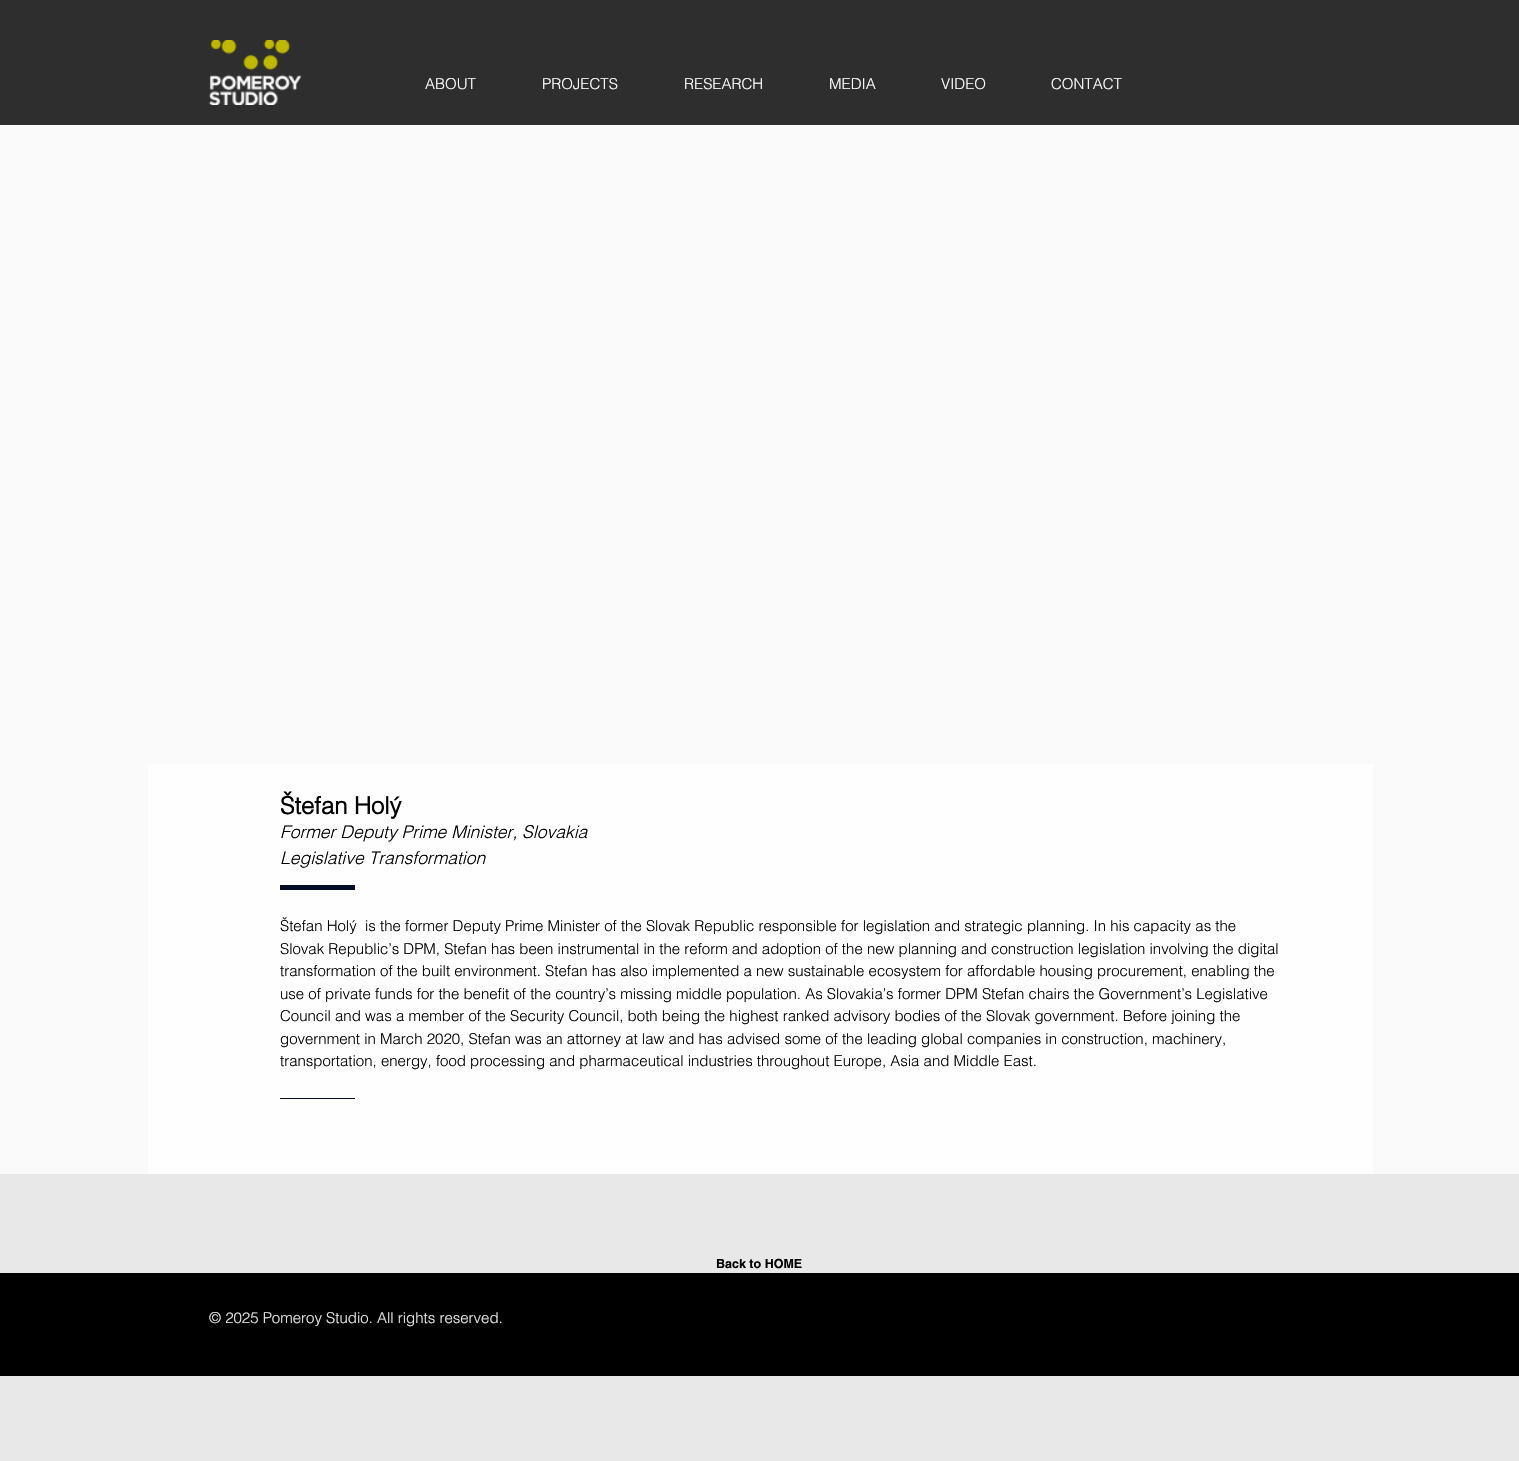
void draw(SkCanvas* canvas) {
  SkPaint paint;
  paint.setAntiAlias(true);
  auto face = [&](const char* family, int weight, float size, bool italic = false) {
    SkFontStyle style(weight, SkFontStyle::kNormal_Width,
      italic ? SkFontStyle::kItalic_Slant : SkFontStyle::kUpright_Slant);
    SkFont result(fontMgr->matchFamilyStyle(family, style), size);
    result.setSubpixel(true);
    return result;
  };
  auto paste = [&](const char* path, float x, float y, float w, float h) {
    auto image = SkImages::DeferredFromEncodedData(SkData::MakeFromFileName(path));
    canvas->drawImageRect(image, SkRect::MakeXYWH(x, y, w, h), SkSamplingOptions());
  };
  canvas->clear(0xffe8e8e8);
  paint.setColor(0xff2f2e2e);
  canvas->drawRect(SkRect::MakeXYWH(0, 0, 1519, 125), paint);
  paste("img/1.png", 208, 40, 94, 65);
  {
    const struct { float x, y, w, h; SkColor color; } items[] = {
      {0, 125, 1519, 1049, 0xfffafafa},
      {148, 764, 1225, 410, 0xfffefefe},
      {280, 885, 75, 5, 0xff060e25},
      {280, 1098, 75, 1, 0xff060e25},
      {0, 1273, 1519, 103, 0xff000000},
    };
    for (auto [x, y, w, h, color] : items) {
      paint.setColor(color);
      canvas->drawRect(SkRect::MakeXYWH(x, y, w, h), paint);
    }
  }
  auto f0 = face("helvetica", 300, 15);
  paint.setColor(0xffffffff);
  {
    const struct { const char* s; float x, y; } items[] = {
      {"ABOUT", 425, 89},
      {"PROJECTS", 542, 89},
      {"RESEARCH", 684, 89},
      {"MEDIA", 829, 89},
      {"VIDEO", 941, 89},
      {"CONTACT", 1051, 89},
    };
    for (auto [s, x, y] : items) {
      canvas->drawString(s, x, y, f0, paint);
    }
  }
  auto f1 = face("helvetica", 700, 23.75f);
  paint.setColor(0xff000000);
  canvas->drawString("Štefan Holý", 280, 814, f1, paint);
  auto f2 = face("helvetica", 300, 17.5f, true);
  canvas->drawString("Former Deputy Prime Minister, Slovakia", 280, 838, f2, paint);
  canvas->drawString("Legislative Transformation", 280, 864, f2, paint);
  {
    const struct { const char* s; float x, y; } items[] = {
      {"Štefan Holý  is the former Deputy Prime Minister of the Slovak Republic responsible for legislation and strategic planning. In his capacity as the", 280, 931},
      {"Slovak Republic’s DPM, Stefan has been instrumental in the reform and adoption of the new planning and construction legislation involving the digital", 280, 954},
      {"transformation of the built environment. Stefan has also implemented a new sustainable ecosystem for affordable housing procurement, enabling the", 280, 976},
      {"use of private funds for the benefit of the country’s missing middle population. As Slovakia’s former DPM Stefan chairs the Government’s Legislative", 280, 999},
      {"Council and was a member of the Security Council, both being the highest ranked advisory bodies of the Slovak government. Before joining the", 280, 1021},
      {"government in March 2020, Stefan was an attorney at law and has advised some of the leading global companies in construction, machinery,", 280, 1044},
      {"transportation, energy, food processing and pharmaceutical industries throughout Europe, Asia and Middle East.", 280, 1066},
    };
    for (auto [s, x, y] : items) {
      canvas->drawString(s, x, y, f0, paint);
    }
  }
  auto f3 = face("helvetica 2", 700, 12.5f);
  canvas->drawString("Back to HOME", 716, 1268, f3, paint);
  paint.setColor(0xffe8e8e8);
  canvas->drawString("© 2025 Pomeroy Studio. All rights reserved.", 209, 1323, f0, paint);
}
